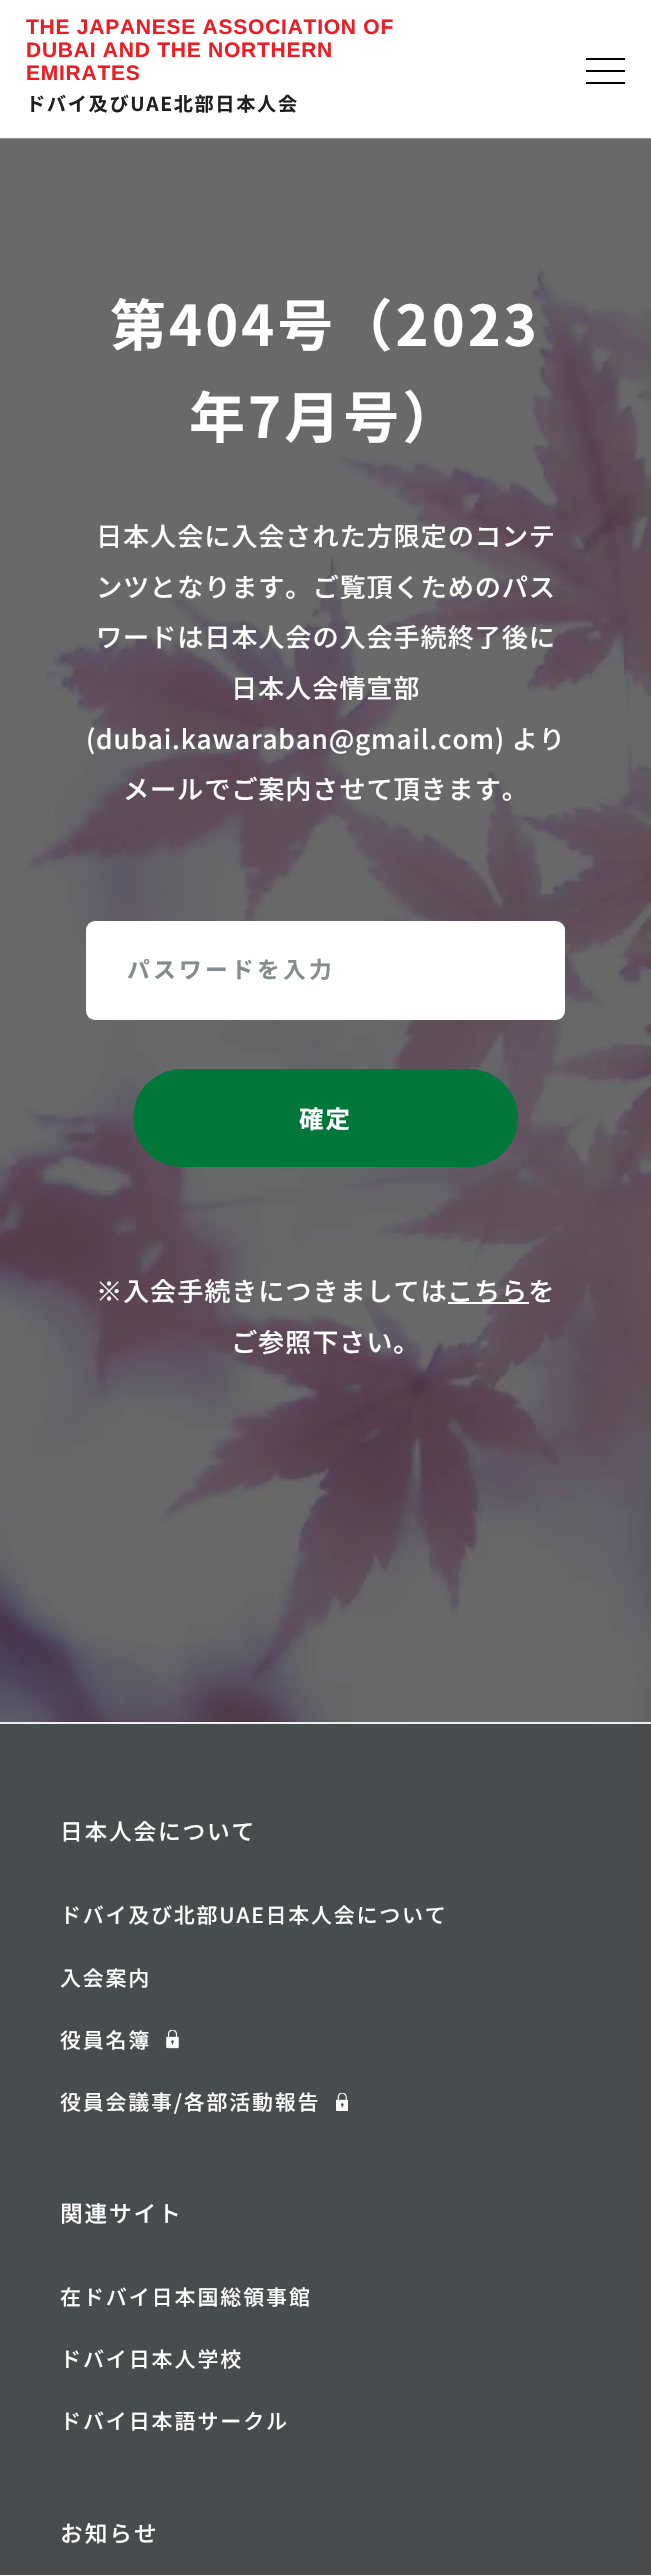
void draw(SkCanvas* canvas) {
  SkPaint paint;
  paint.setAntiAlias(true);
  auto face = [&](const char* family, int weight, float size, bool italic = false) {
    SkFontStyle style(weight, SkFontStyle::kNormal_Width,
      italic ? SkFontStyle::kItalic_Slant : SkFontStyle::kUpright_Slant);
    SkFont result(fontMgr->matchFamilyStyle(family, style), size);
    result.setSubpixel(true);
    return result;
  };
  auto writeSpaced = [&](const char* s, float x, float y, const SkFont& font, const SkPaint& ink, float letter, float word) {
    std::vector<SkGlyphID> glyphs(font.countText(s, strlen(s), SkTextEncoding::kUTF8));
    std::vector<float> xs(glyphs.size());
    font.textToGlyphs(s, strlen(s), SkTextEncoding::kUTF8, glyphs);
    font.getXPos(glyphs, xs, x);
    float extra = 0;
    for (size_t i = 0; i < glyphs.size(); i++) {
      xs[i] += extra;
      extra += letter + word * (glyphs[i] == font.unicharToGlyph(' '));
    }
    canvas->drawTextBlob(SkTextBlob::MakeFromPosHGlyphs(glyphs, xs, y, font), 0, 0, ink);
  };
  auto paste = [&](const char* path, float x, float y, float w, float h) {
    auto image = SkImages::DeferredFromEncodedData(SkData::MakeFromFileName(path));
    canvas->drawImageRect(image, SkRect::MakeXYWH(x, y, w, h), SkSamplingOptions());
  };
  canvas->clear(0xffffffff);
  {
    const struct { float x, y, w, h; SkColor color; } items[] = {
      {586, 58, 39, 2, 0xff000000},
      {586, 70, 39, 2, 0xff000000},
      {586, 82, 39, 2, 0xff000000},
    };
    for (auto [x, y, w, h, color] : items) {
      paint.setColor(color);
      canvas->drawRect(SkRect::MakeXYWH(x, y, w, h), paint);
    }
  }
  paste("img/1.png", 0, 138, 651, 1584);
  paint.setColor(0xffffffff);
  canvas->drawRoundRect(SkRect::MakeXYWH(86, 921, 479, 99), 9, 9, paint);
  paint.setColor(0xff017739);
  canvas->drawRoundRect(SkRect::MakeXYWH(133, 1069, 385, 98), 49, 49, paint);
  {
    const struct { float x, y, w, h; SkColor color; } items[] = {
      {448, 1302, 81, 2, 0xffffffff},
      {0, 1724, 651, 851, 0xff474c4f},
      {0, 1722, 651, 2, 0xffeeeeee},
    };
    for (auto [x, y, w, h, color] : items) {
      paint.setColor(color);
      canvas->drawRect(SkRect::MakeXYWH(x, y, w, h), paint);
    }
  }
  paste("img/2.png", 166, 2030, 13, 19);
  paste("img/3.png", 336, 2093, 12, 18);
  auto f0 = face("Liberation Sans", 700, 21);
  paint.setColor(0xffec1d25);
  {
    const struct { const char* s; float x, y; } items[] = {
      {"THE JAPANESE ASSOCIATION OF", 26, 34},
      {"DUBAI AND THE NORTHERN", 26, 57},
      {"EMIRATES", 26, 80},
    };
    for (auto [s, x, y] : items) {
      writeSpaced(s, x, y, f0, paint, 0.75f, 0);
    }
  }
  auto f1 = face("Noto Sans CJK JP", 700, 19.25f);
  paint.setColor(0xff1f1f1f);
  writeSpaced("ドバイ及びUAE北部日本人会", 26, 111, f1, paint, 1.6f, 0);
  auto f2 = face("Noto Sans CJK JP", 700, 56);
  paint.setColor(0xffffffff);
  writeSpaced("第404号（2023", 110, 346, f2, paint, 3.1f, 0);
  writeSpaced("年7月号）", 189, 438, f2, paint, 3.1f, 0);
  auto f3 = face("Noto Sans CJK JP", 500, 26.25f);
  {
    const struct { const char* s; float x, y; } items[] = {
      {"日本人会に入会された方限定のコンテ", 96, 546},
      {"ンツとなります。ご覧頂くためのパス", 96, 597},
      {"ワードは日本人会の入会手続終了後に", 96, 647},
      {"日本人会情宣部", 231, 698},
      {"(dubai.kawaraban@gmail.com) より", 86, 749},
      {"メールでご案内させて頂きます。", 123, 799},
    };
    for (auto [s, x, y] : items) {
      writeSpaced(s, x, y, f3, paint, 0.8f, 0);
    }
  }
  auto f4 = face("Noto Sans CJK JP", 700, 22.75f);
  paint.setColor(0xff848b91);
  writeSpaced("パスワードを入力", 127, 978, f4, paint, 3.25f, 0);
  auto f5 = face("Noto Sans CJK JP", 700, 24.5f);
  paint.setColor(0xffffffff);
  writeSpaced("確定", 299, 1128, f5, paint, 2, 0);
  {
    const struct { const char* s; float x, y; } items[] = {
      {"※入会手続きにつきましては", 96, 1301},
      {"こちらを", 447, 1301},
      {"ご参照下さい。", 231, 1352},
    };
    for (auto [s, x, y] : items) {
      writeSpaced(s, x, y, f3, paint, 0.8f, 0);
    }
  }
  auto f6 = face("Noto Sans CJK JP", 500, 22.75f);
  writeSpaced("日本人会について", 60, 1840, f6, paint, 1.75f, 0);
  auto f7 = face("Noto Sans CJK JP", 500, 21);
  {
    const struct { const char* s; float x, y; } items[] = {
      {"ドバイ及び北部UAE日本人会について", 60, 1923},
      {"入会案内", 60, 1986},
      {"役員名簿", 60, 2048},
      {"役員会議事/各部活動報告", 60, 2110},
    };
    for (auto [s, x, y] : items) {
      writeSpaced(s, x, y, f7, paint, 1.75f, 0);
    }
  }
  writeSpaced("関連サイト", 60, 2222, f6, paint, 1.75f, 0);
  {
    const struct { const char* s; float x, y; } items[] = {
      {"在ドバイ日本国総領事館", 60, 2305},
      {"ドバイ日本人学校", 60, 2367},
      {"ドバイ日本語サークル", 60, 2429},
    };
    for (auto [s, x, y] : items) {
      writeSpaced(s, x, y, f7, paint, 1.9f, 0);
    }
  }
  writeSpaced("お知らせ", 60, 2542, f6, paint, 1.9f, 0);
}
